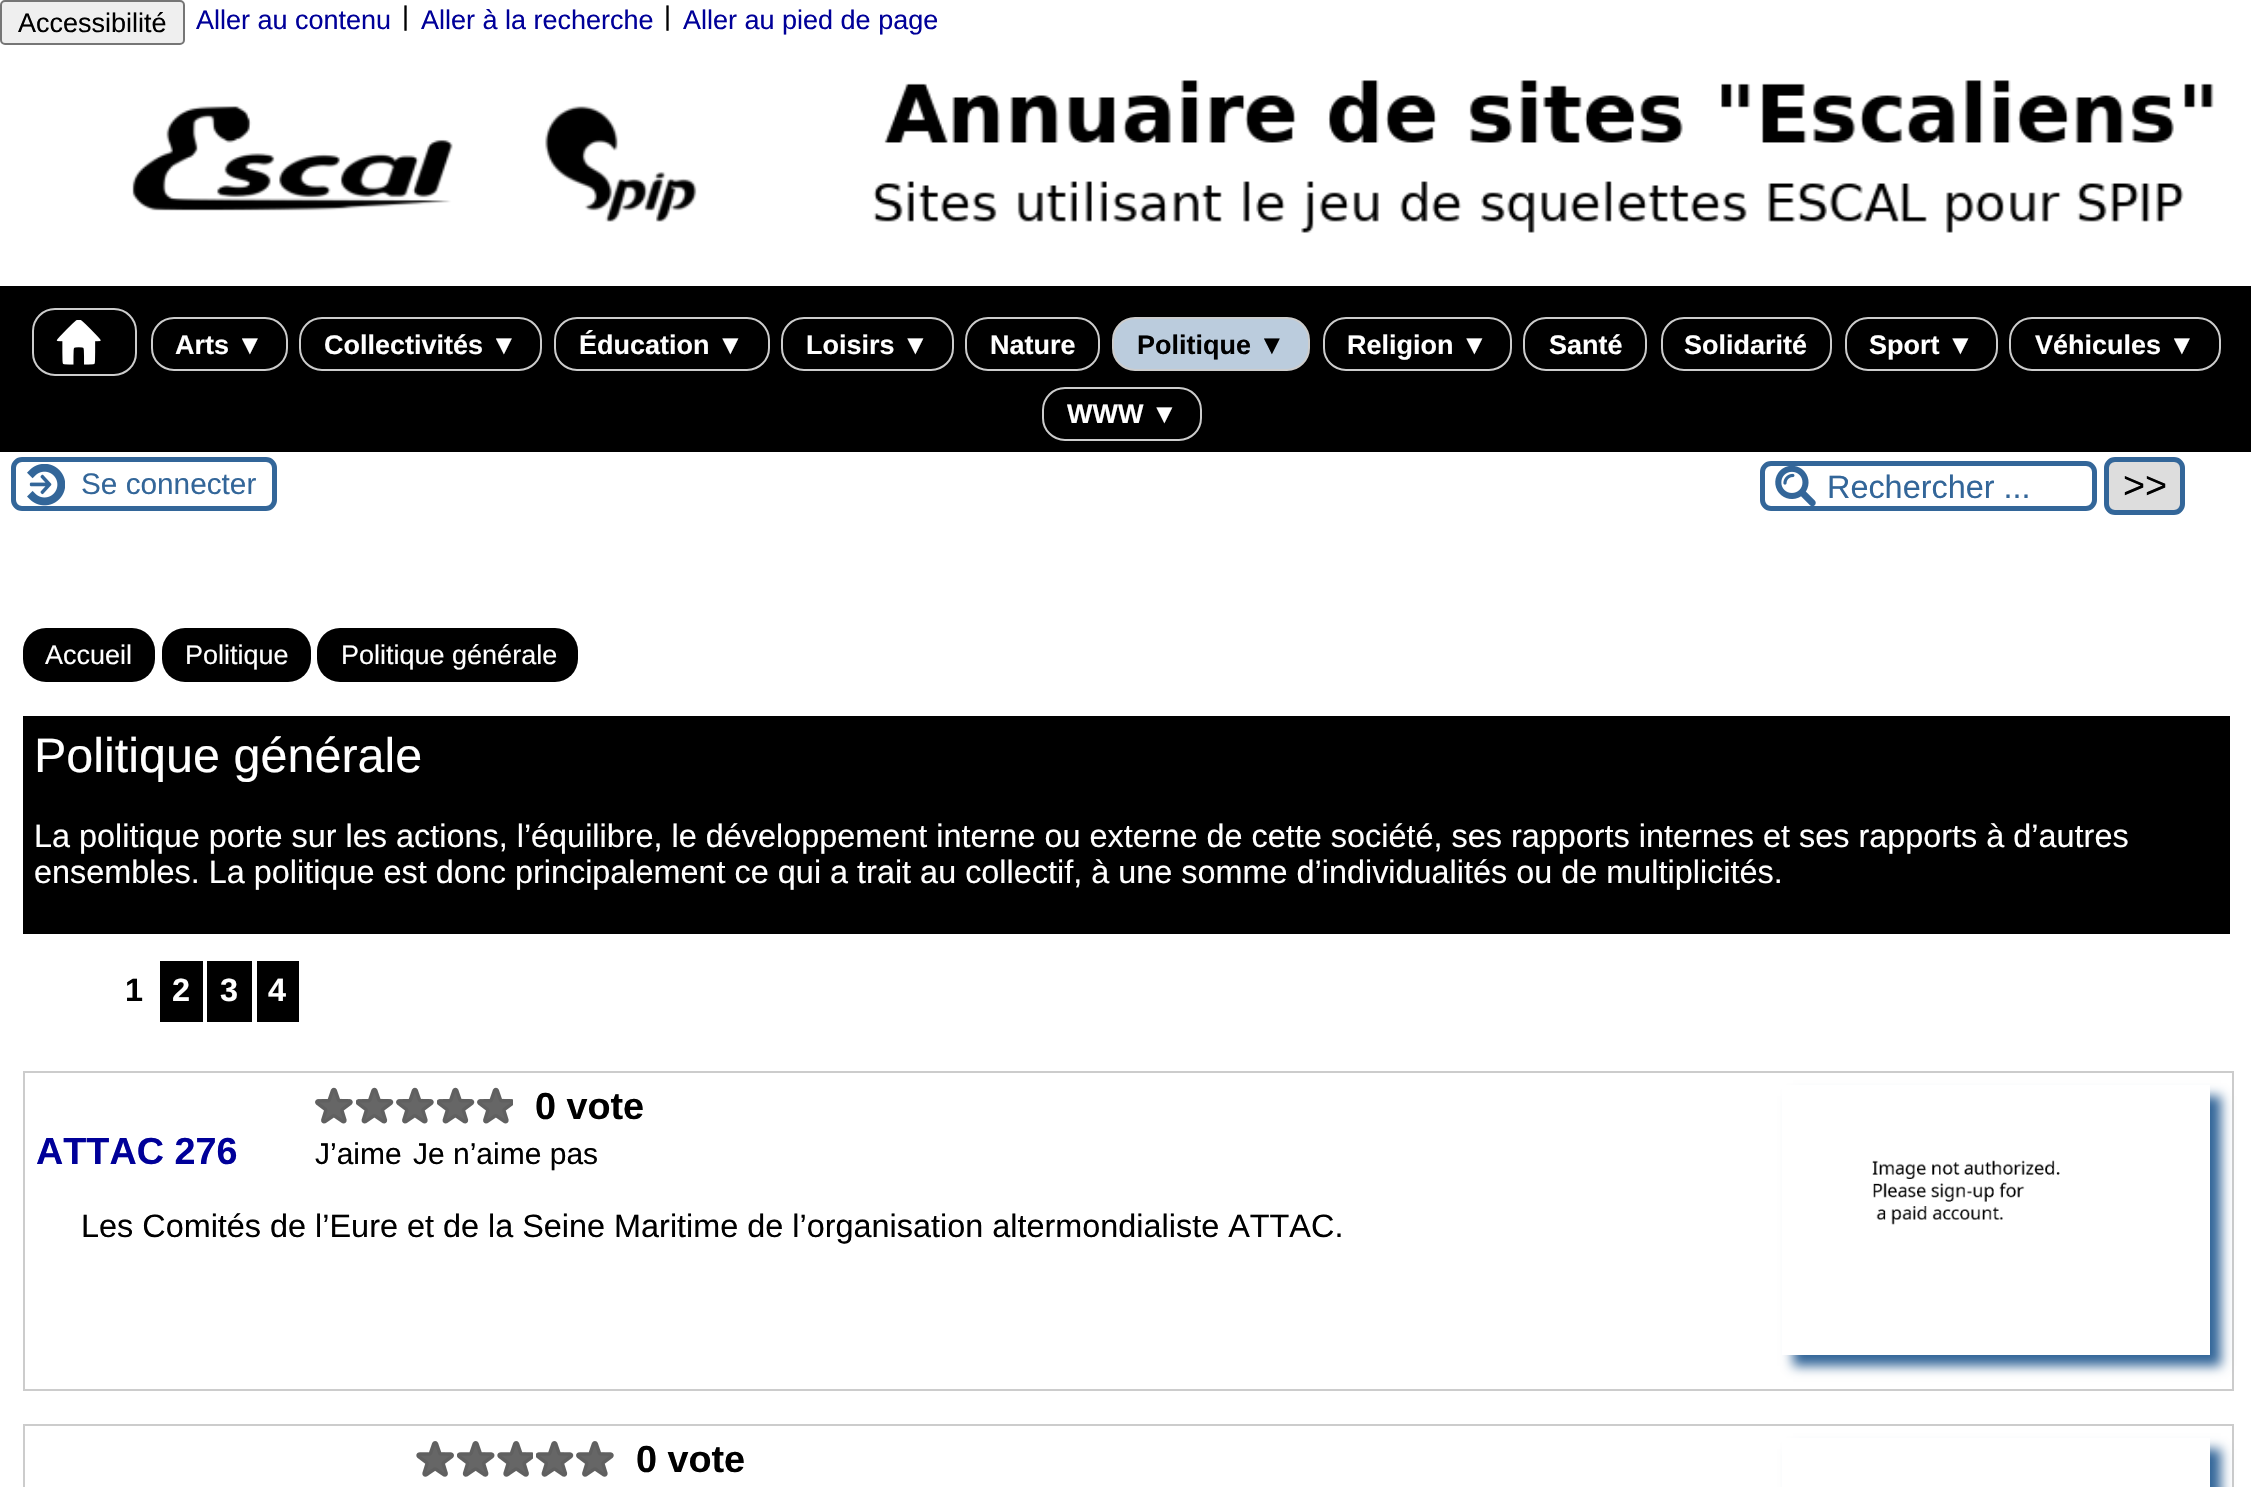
void draw(SkCanvas* canvas) {
  SkPaint paint;
  paint.setAntiAlias(true);
  auto face = [&](const char* family, int weight, float size, bool italic = false) {
    SkFontStyle style(weight, SkFontStyle::kNormal_Width,
      italic ? SkFontStyle::kItalic_Slant : SkFontStyle::kUpright_Slant);
    SkFont result(fontMgr->matchFamilyStyle(family, style), size);
    result.setSubpixel(true);
    return result;
  };
  auto paste = [&](const char* path, float x, float y, float w, float h) {
    auto image = SkImages::DeferredFromEncodedData(SkData::MakeFromFileName(path));
    canvas->drawImageRect(image, SkRect::MakeXYWH(x, y, w, h), SkSamplingOptions());
  };
  auto shape = [&](const char* data, bool evenOdd = false) {
    SkPath result = *SkParsePath::FromSVGString(data);
    if (evenOdd) result.setFillType(SkPathFillType::kEvenOdd);
    return result;
  };
  canvas->clear(0xffffffff);
  paint.setColor(0xffefefef);
  canvas->drawRoundRect(SkRect::MakeXYWH(1, 1, 183, 43), 4, 4, paint);
  paint.setStroke(true);
  paint.setStrokeWidth(2);
  paint.setColor(0xff767676);
  canvas->drawRoundRect(SkRect::MakeXYWH(1, 1, 183, 43), 4, 4, paint);
  paste("img/1.png", 132, 80, 2082, 153);
  paint.setStroke(false);
  paint.setColor(0xff000000);
  canvas->drawRect(SkRect::MakeXYWH(0, 286, 2251, 166), paint);
  paint.setStroke(true);
  paint.setColor(0xffcccccc);
  canvas->drawRoundRect(SkRect::MakeXYWH(33, 309, 103, 66), 22, 22, paint);
  paste("img/2.png", 56, 320, 45, 45);
  canvas->drawRoundRect(SkRect::MakeXYWH(152, 318, 135, 52), 22, 22, paint);
  canvas->drawRoundRect(SkRect::MakeXYWH(300, 318, 241, 52), 22, 22, paint);
  canvas->drawRoundRect(SkRect::MakeXYWH(555, 318, 214, 52), 22, 22, paint);
  canvas->drawRoundRect(SkRect::MakeXYWH(782, 318, 171, 52), 22, 22, paint);
  canvas->drawRoundRect(SkRect::MakeXYWH(966, 318, 133, 52), 22, 22, paint);
  paint.setStroke(false);
  paint.setColor(0xffbbccdd);
  canvas->drawRoundRect(SkRect::MakeXYWH(1113, 318, 196, 52), 22, 22, paint);
  paint.setStroke(true);
  paint.setColor(0xffcccccc);
  canvas->drawRoundRect(SkRect::MakeXYWH(1113, 318, 196, 52), 22, 22, paint);
  canvas->drawRoundRect(SkRect::MakeXYWH(1324, 318, 187, 52), 22, 22, paint);
  canvas->drawRoundRect(SkRect::MakeXYWH(1524, 318, 122, 52), 22, 22, paint);
  canvas->drawRoundRect(SkRect::MakeXYWH(1662, 318, 169, 52), 22, 22, paint);
  canvas->drawRoundRect(SkRect::MakeXYWH(1846, 318, 151, 52), 22, 22, paint);
  canvas->drawRoundRect(SkRect::MakeXYWH(2010, 318, 210, 52), 22, 22, paint);
  canvas->drawRoundRect(SkRect::MakeXYWH(1043, 388, 158, 52), 22, 22, paint);
  paste("img/3.png", 27, 464, 38, 42);
  paint.setStrokeWidth(5);
  paint.setColor(0xff336699);
  canvas->drawRoundRect(SkRect::MakeXYWH(13.5f, 459.5f, 261, 49), 8.5f, 8.5f, paint);
  paste("img/4.png", 1775, 466, 41, 40);
  canvas->drawRoundRect(SkRect::MakeXYWH(1762.5f, 463.5f, 332, 45), 8.5f, 8.5f, paint);
  paint.setStroke(false);
  paint.setColor(0xffdddddd);
  canvas->drawRoundRect(SkRect::MakeXYWH(2106.5f, 459.5f, 76, 53), 8.5f, 8.5f, paint);
  paint.setStroke(true);
  paint.setColor(0xff336699);
  canvas->drawRoundRect(SkRect::MakeXYWH(2106.5f, 459.5f, 76, 53), 8.5f, 8.5f, paint);
  paint.setStroke(false);
  paint.setColor(0xff000000);
  canvas->drawRoundRect(SkRect::MakeXYWH(23, 628, 132, 54), 23, 23, paint);
  canvas->drawRoundRect(SkRect::MakeXYWH(162, 628, 149, 54), 23, 23, paint);
  canvas->drawRoundRect(SkRect::MakeXYWH(317, 628, 261, 54), 23, 23, paint);
  {
    const struct { float x, y, w, h; SkColor color; } items[] = {
      {23, 716, 2207, 218, 0xff000000},
      {160, 961, 43, 61, 0xff000000},
      {207, 961, 45, 61, 0xff000000},
      {257, 961, 42, 61, 0xff000000},
    };
    for (auto [x, y, w, h, color] : items) {
      paint.setColor(color);
      canvas->drawRect(SkRect::MakeXYWH(x, y, w, h), paint);
    }
  }
  paint.setStroke(true);
  paint.setStrokeWidth(2);
  paint.setColor(0xffcccccc);
  canvas->drawRect(SkRect::MakeXYWH(24, 1072, 2209, 318), paint);
  paste("img/5.png", 315, 1087, 38, 37);
  paste("img/6.png", 356, 1087, 38, 37);
  paste("img/5.png", 396, 1087, 38, 37);
  paste("img/6.png", 437, 1087, 38, 37);
  paste("img/7.png", 477, 1087, 36, 37);
  canvas->save();
  canvas->clipPath(shape("M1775 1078H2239V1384H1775ZM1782 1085H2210V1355H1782Z", true), true);
  paint.setStroke(false);
  paint.setColor(0xff336699);
  paint.setMaskFilter(SkMaskFilter::MakeBlur(kNormal_SkBlurStyle, 5.5f));
  canvas->drawRect(SkRect::MakeXYWH(1793, 1096, 428, 270), paint);
  paint.setMaskFilter(nullptr);
  canvas->restore();
  paste("img/8.png", 1785, 1160, 402, 195);
  paint.setStroke(true);
  paint.setColor(0xffcccccc);
  canvas->drawRect(SkRect::MakeXYWH(24, 1425, 2209, 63), paint);
  paste("img/9.png", 416, 1441, 38, 36);
  paste("img/10.png", 457, 1441, 38, 36);
  paste("img/11.png", 497, 1441, 36, 36);
  paste("img/12.png", 536, 1441, 38, 36);
  paste("img/13.png", 576, 1441, 38, 36);
  canvas->save();
  canvas->clipPath(shape("M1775 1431H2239V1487H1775ZM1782 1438H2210V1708H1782Z", true), true);
  paint.setStroke(false);
  paint.setColor(0xff336699);
  paint.setMaskFilter(SkMaskFilter::MakeBlur(kNormal_SkBlurStyle, 5.5f));
  canvas->drawRect(SkRect::MakeXYWH(1793, 1449, 428, 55), paint);
  paint.setMaskFilter(nullptr);
  canvas->restore();
  auto f0 = face("Liberation Sans", 400, 27);
  paint.setColor(0xff000000);
  canvas->drawString("Accessibilité", 18, 32, f0, paint);
  paint.setColor(0xff000099);
  canvas->drawString("Aller au contenu", 196, 29, f0, paint);
  paint.setColor(0xff000000);
  canvas->drawString("|", 402, 25, f0, paint);
  paint.setColor(0xff000099);
  canvas->drawString("Aller à la recherche", 421, 29, f0, paint);
  paint.setColor(0xff000000);
  canvas->drawString("|", 664, 25, f0, paint);
  paint.setColor(0xff000099);
  canvas->drawString("Aller au pied de page", 683, 29, f0, paint);
  auto f1 = face("Liberation Sans", 700, 27);
  paint.setColor(0xffffffff);
  {
    const struct { const char* s; float x, y; } items[] = {
      {"Arts ▼", 175, 354},
      {"Collectivités ▼", 324, 354},
      {"Éducation ▼", 579, 354},
      {"Loisirs ▼", 806, 354},
      {"Nature", 990, 354},
    };
    for (auto [s, x, y] : items) {
      canvas->drawString(s, x, y, f1, paint);
    }
  }
  paint.setColor(0xff000000);
  canvas->drawString("Politique ▼", 1137, 354, f1, paint);
  paint.setColor(0xffffffff);
  {
    const struct { const char* s; float x, y; } items[] = {
      {"Religion ▼", 1347, 354},
      {"Santé", 1549, 354},
      {"Solidarité", 1684, 354},
      {"Sport ▼", 1869, 354},
      {"Véhicules ▼", 2035, 354},
      {"WWW ▼", 1067, 423},
    };
    for (auto [s, x, y] : items) {
      canvas->drawString(s, x, y, f1, paint);
    }
  }
  auto f2 = face("Liberation Sans", 400, 29.75f);
  paint.setColor(0xff336699);
  canvas->drawString("Se connecter", 81, 494, f2, paint);
  auto f3 = face("Liberation Sans", 400, 32.4f);
  canvas->drawString("Rechercher ...", 1827, 498, f3, paint);
  auto f4 = face("Liberation Sans", 400, 37.75f);
  paint.setColor(0xff000000);
  canvas->drawString(">>", 2123, 498, f4, paint);
  paint.setColor(0xffffffff);
  {
    const struct { const char* s; float x, y; } items[] = {
      {"Accueil", 45, 664},
      {"Politique", 185, 664},
      {"Politique générale", 341, 664},
    };
    for (auto [s, x, y] : items) {
      canvas->drawString(s, x, y, f0, paint);
    }
  }
  auto f5 = face("Liberation Sans", 400, 48.5f);
  canvas->drawString("Politique générale", 34, 772, f5, paint);
  canvas->drawString("La politique porte sur les actions, l’équilibre, le développement interne ou externe de cette société, ses rapports internes et ses rapports à d’autres", 34, 847, f3, paint);
  canvas->drawString("ensembles. La politique est donc principalement ce qui a trait au collectif, à une somme d’individualités ou de multiplicités.", 34, 883, f3, paint);
  auto f6 = face("Liberation Sans", 700, 32.4f);
  paint.setColor(0xff000000);
  canvas->drawString("1", 125, 1001, f6, paint);
  paint.setColor(0xffffffff);
  {
    const struct { const char* s; float x, y; } items[] = {
      {"2", 172, 1001},
      {"3", 220, 1001},
      {"4", 268, 1001},
    };
    for (auto [s, x, y] : items) {
      canvas->drawString(s, x, y, f6, paint);
    }
  }
  auto f7 = face("Liberation Sans", 700, 37.75f);
  paint.setColor(0xff000099);
  canvas->drawString("ATTAC 276", 36, 1164, f7, paint);
  paint.setColor(0xff000000);
  canvas->drawString("0 vote", 535, 1119, f7, paint);
  auto f8 = face("Liberation Sans", 400, 30);
  canvas->drawString("J’aime", 315, 1164, f8, paint);
  canvas->drawString("Je n’aime pas", 413, 1164, f8, paint);
  canvas->drawString("Les Comités de l’Eure et de la Seine Maritime de l’organisation altermondialiste ATTAC.", 81, 1237, f3, paint);
  canvas->drawString("0 vote", 636, 1472, f7, paint);
}
